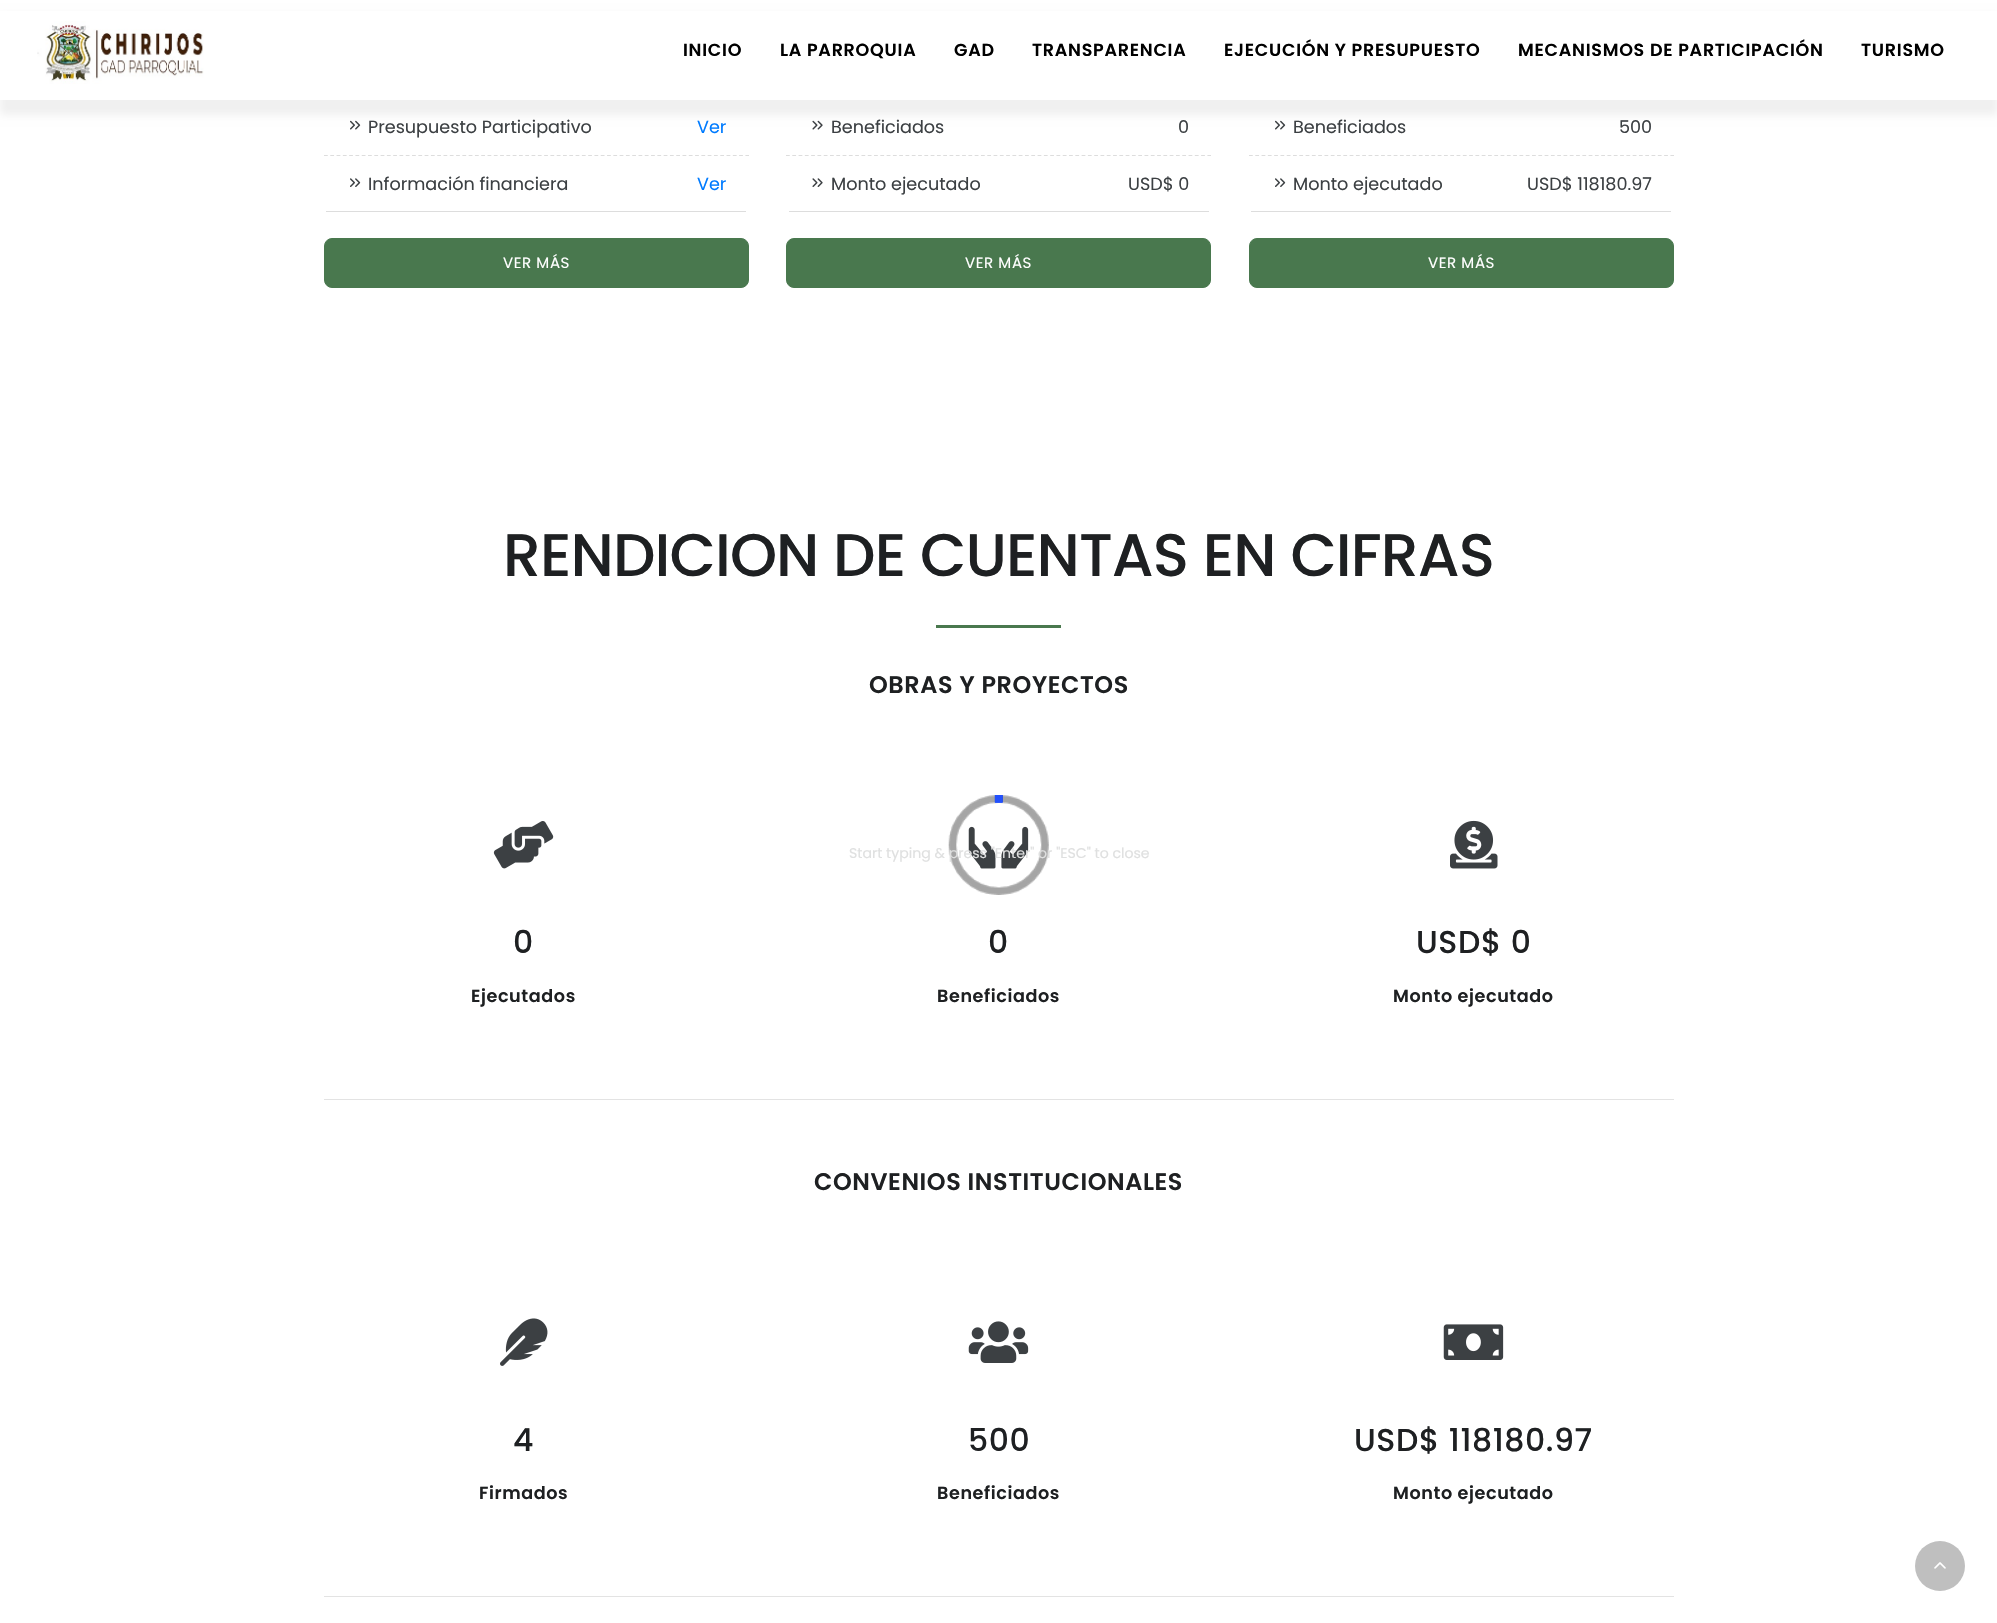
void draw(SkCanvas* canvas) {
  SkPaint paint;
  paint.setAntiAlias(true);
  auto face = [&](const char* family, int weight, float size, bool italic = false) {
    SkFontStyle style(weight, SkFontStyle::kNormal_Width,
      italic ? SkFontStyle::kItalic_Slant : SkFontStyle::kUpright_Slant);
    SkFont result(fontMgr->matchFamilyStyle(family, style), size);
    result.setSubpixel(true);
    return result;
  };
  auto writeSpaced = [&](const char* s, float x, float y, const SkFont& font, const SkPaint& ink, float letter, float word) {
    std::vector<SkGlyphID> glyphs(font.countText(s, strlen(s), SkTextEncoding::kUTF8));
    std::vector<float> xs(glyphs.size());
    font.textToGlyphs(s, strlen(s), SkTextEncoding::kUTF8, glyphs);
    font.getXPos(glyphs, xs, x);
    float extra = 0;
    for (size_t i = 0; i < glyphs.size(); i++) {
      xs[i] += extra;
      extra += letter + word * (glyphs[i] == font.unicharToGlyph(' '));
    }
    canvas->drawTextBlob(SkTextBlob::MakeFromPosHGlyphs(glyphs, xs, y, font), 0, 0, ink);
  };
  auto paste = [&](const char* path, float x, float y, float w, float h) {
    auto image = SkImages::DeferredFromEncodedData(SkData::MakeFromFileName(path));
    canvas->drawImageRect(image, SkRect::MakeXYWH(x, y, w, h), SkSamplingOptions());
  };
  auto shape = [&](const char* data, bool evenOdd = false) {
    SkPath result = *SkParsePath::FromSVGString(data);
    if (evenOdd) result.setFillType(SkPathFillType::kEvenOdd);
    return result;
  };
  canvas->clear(0xffffffff);
  paste("img/2.png", 350, 120, 11, 10);
  paste("img/4.png", 812, 120, 11, 10);
  paste("img/2.png", 1275, 120, 11, 10);
  paint.setColor(0x0f000000);
  paint.setMaskFilter(SkMaskFilter::MakeBlur(kNormal_SkBlurStyle, 4));
  canvas->drawRect(SkRect::MakeXYWH(0, 15, 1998, 100), paint);
  paint.setMaskFilter(nullptr);
  paint.setColor(0xffffffff);
  canvas->drawRect(SkRect::MakeXYWH(0, 11, 1997, 89), paint);
  paste("img/1.png", 37, 21, 167, 63);
  paint.setStroke(true);
  paint.setStrokeWidth(1.2f);
  paint.setColor(0xffdddddd);
  paint.setPathEffect(SkDashPathEffect::Make({{3.75f, 2.54f}}, 0));
  canvas->drawPath(shape("M324 155.5H749"), paint);
  paint.setPathEffect(nullptr);
  paint.setStroke(false);
  paint.setColor(0xffffffff);
  canvas->drawPath(shape("M324 156H749V208C749 211 747 213 744 213H329C326 213 324 211 324 208Z"), paint);
  paint.setColor(0xffdddddd);
  canvas->drawRect(SkRect::MakeXYWH(326, 211, 420, 1), paint);
  paste("img/3.png", 350, 178, 11, 9);
  paint.setColor(0xff49784e);
  canvas->drawRoundRect(SkRect::MakeXYWH(324.5f, 238.5f, 424, 49), 7.5f, 7.5f, paint);
  paint.setStroke(true);
  paint.setStrokeWidth(1);
  canvas->drawRoundRect(SkRect::MakeXYWH(324.5f, 238.5f, 424, 49), 7.5f, 7.5f, paint);
  paint.setStrokeWidth(1.2f);
  paint.setColor(0xffdddddd);
  paint.setPathEffect(SkDashPathEffect::Make({{3.75f, 2.54f}}, 0));
  canvas->drawPath(shape("M786 155.5H1211"), paint);
  paint.setPathEffect(nullptr);
  paint.setStroke(false);
  paint.setColor(0xffffffff);
  canvas->drawPath(shape("M786 156H1211V208C1211 211 1209 213 1206 213H791C788 213 786 211 786 208Z"), paint);
  paint.setColor(0xffdddddd);
  canvas->drawRect(SkRect::MakeXYWH(789, 211, 420, 1), paint);
  paste("img/5.png", 812, 178, 11, 9);
  paint.setColor(0xff49784e);
  canvas->drawRoundRect(SkRect::MakeXYWH(786.5f, 238.5f, 424, 49), 7.5f, 7.5f, paint);
  paint.setStroke(true);
  paint.setStrokeWidth(1);
  canvas->drawRoundRect(SkRect::MakeXYWH(786.5f, 238.5f, 424, 49), 7.5f, 7.5f, paint);
  paint.setStrokeWidth(1.2f);
  paint.setColor(0xffdddddd);
  paint.setPathEffect(SkDashPathEffect::Make({{3.75f, 2.54f}}, 0));
  canvas->drawPath(shape("M1249 155.5H1674"), paint);
  paint.setPathEffect(nullptr);
  paint.setStroke(false);
  paint.setColor(0xffffffff);
  canvas->drawPath(shape("M1249 156H1674V208C1674 211 1672 213 1669 213H1254C1251 213 1249 211 1249 208Z"), paint);
  paint.setColor(0xffdddddd);
  canvas->drawRect(SkRect::MakeXYWH(1251, 211, 420, 1), paint);
  paste("img/3.png", 1275, 178, 11, 9);
  paint.setColor(0xff49784e);
  canvas->drawRoundRect(SkRect::MakeXYWH(1249.5f, 238.5f, 424, 49), 7.5f, 7.5f, paint);
  paint.setStroke(true);
  paint.setStrokeWidth(1);
  canvas->drawRoundRect(SkRect::MakeXYWH(1249.5f, 238.5f, 424, 49), 7.5f, 7.5f, paint);
  paint.setStroke(false);
  canvas->drawRect(SkRect::MakeXYWH(936, 625, 125, 3), paint);
  paste("img/6.png", 493, 821, 61, 48);
  paste("img/11.png", 968, 826, 61, 43);
  paste("img/7.png", 948, 795, 101, 100);
  paste("img/8.png", 948, 795, 101, 100);
  paste("img/9.png", 948, 795, 101, 100);
  paste("img/10.png", 948, 795, 101, 100);
  paste("img/12.png", 1450, 820, 48, 49);
  paint.setColor(0xffe3e3e3);
  canvas->drawRect(SkRect::MakeXYWH(324, 1099, 1350, 1), paint);
  paste("img/13.png", 500, 1318, 48, 48);
  paste("img/14.png", 968, 1321, 61, 42);
  paste("img/15.png", 1443, 1324, 61, 36);
  canvas->drawRect(SkRect::MakeXYWH(324, 1596, 1350, 1), paint);
  paint.setColor(0xffbfbfbf);
  canvas->drawCircle(1940, 1566, 25, paint);
  paste("img/16.png", 1934, 1562, 12, 7);
  auto f0 = face("Poppins", 600, 17.5f);
  paint.setColor(0xff000000);
  {
    const struct { const char* s; float x, y; } items[] = {
      {"INICIO", 683, 56},
      {"LA PARROQUIA", 780, 56},
      {"GAD", 954, 56},
      {"TRANSPARENCIA", 1032, 56},
      {"EJECUCIÓN Y PRESUPUESTO", 1224, 56},
      {"MECANISMOS DE PARTICIPACIÓN", 1518, 56},
      {"TURISMO", 1861, 56},
    };
    for (auto [s, x, y] : items) {
      writeSpaced(s, x, y, f0, paint, 0.75f, 0);
    }
  }
  auto f1 = face("Poppins", 400, 14.1f);
  paint.setColor(0xffdfe0e0);
  canvas->drawString("Start typing & press \"Enter\" or \"ESC\" to close", 849, 858, f1, paint);
  auto f2 = face("Poppins", 400, 17.6f);
  paint.setColor(0xff3c4043);
  canvas->drawString("Presupuesto Participativo", 368, 133, f2, paint);
  paint.setColor(0xff007bff);
  canvas->drawString("Ver", 697, 133, f2, paint);
  paint.setColor(0xff3c4043);
  canvas->drawString("Información financiera", 368, 190, f2, paint);
  paint.setColor(0xff007bff);
  canvas->drawString("Ver", 697, 190, f2, paint);
  auto f3 = face("Poppins", 400, 15);
  paint.setColor(0xffffffff);
  writeSpaced("VER MÁS", 503, 268, f3, paint, 0.6f, 0);
  paint.setColor(0xff3c4043);
  {
    const struct { const char* s; float x, y; } items[] = {
      {"Beneficiados", 831, 133},
      {"0", 1178, 133},
      {"Monto ejecutado", 831, 190},
      {"USD$ 0", 1128, 190},
    };
    for (auto [s, x, y] : items) {
      canvas->drawString(s, x, y, f2, paint);
    }
  }
  paint.setColor(0xffffffff);
  writeSpaced("VER MÁS", 965, 268, f3, paint, 0.6f, 0);
  paint.setColor(0xff3c4043);
  {
    const struct { const char* s; float x, y; } items[] = {
      {"Beneficiados", 1293, 133},
      {"500", 1619, 133},
      {"Monto ejecutado", 1293, 190},
      {"USD$ 118180.97", 1527, 190},
    };
    for (auto [s, x, y] : items) {
      canvas->drawString(s, x, y, f2, paint);
    }
  }
  paint.setColor(0xffffffff);
  writeSpaced("VER MÁS", 1428, 268, f3, paint, 0.6f, 0);
  auto f4 = face("Poppins", 500, 60);
  paint.setColor(0xff1e2022);
  writeSpaced("RENDICION DE CUENTAS EN CIFRAS", 503, 576, f4, paint, -0.9f, 0);
  auto f5 = face("Poppins", 600, 23.9f);
  writeSpaced("OBRAS Y PROYECTOS", 869, 693, f5, paint, 0.6f, 0);
  auto f6 = face("Poppins", 500, 31.5f);
  writeSpaced("0", 513, 953, f6, paint, 0.6f, 0);
  auto f7 = face("Poppins", 600, 17.6f);
  writeSpaced("Ejecutados", 471, 1002, f7, paint, 0.6f, 0);
  writeSpaced("0", 988, 953, f6, paint, 0.6f, 0);
  writeSpaced("Beneficiados", 937, 1002, f7, paint, 0.6f, 0);
  writeSpaced("USD$ 0", 1416, 953, f6, paint, 0.6f, 0);
  writeSpaced("Monto ejecutado", 1393, 1002, f7, paint, 0.6f, 0);
  writeSpaced("CONVENIOS INSTITUCIONALES", 814, 1190, f5, paint, 0.6f, 0);
  writeSpaced("4", 513, 1451, f6, paint, 0.6f, 0);
  writeSpaced("Firmados", 479, 1499, f7, paint, 0.6f, 0);
  writeSpaced("500", 968, 1451, f6, paint, 0.6f, 0);
  writeSpaced("Beneficiados", 937, 1499, f7, paint, 0.6f, 0);
  writeSpaced("USD$ 118180.97", 1354, 1451, f6, paint, 0.6f, 0);
  writeSpaced("Monto ejecutado", 1393, 1499, f7, paint, 0.6f, 0);
}
